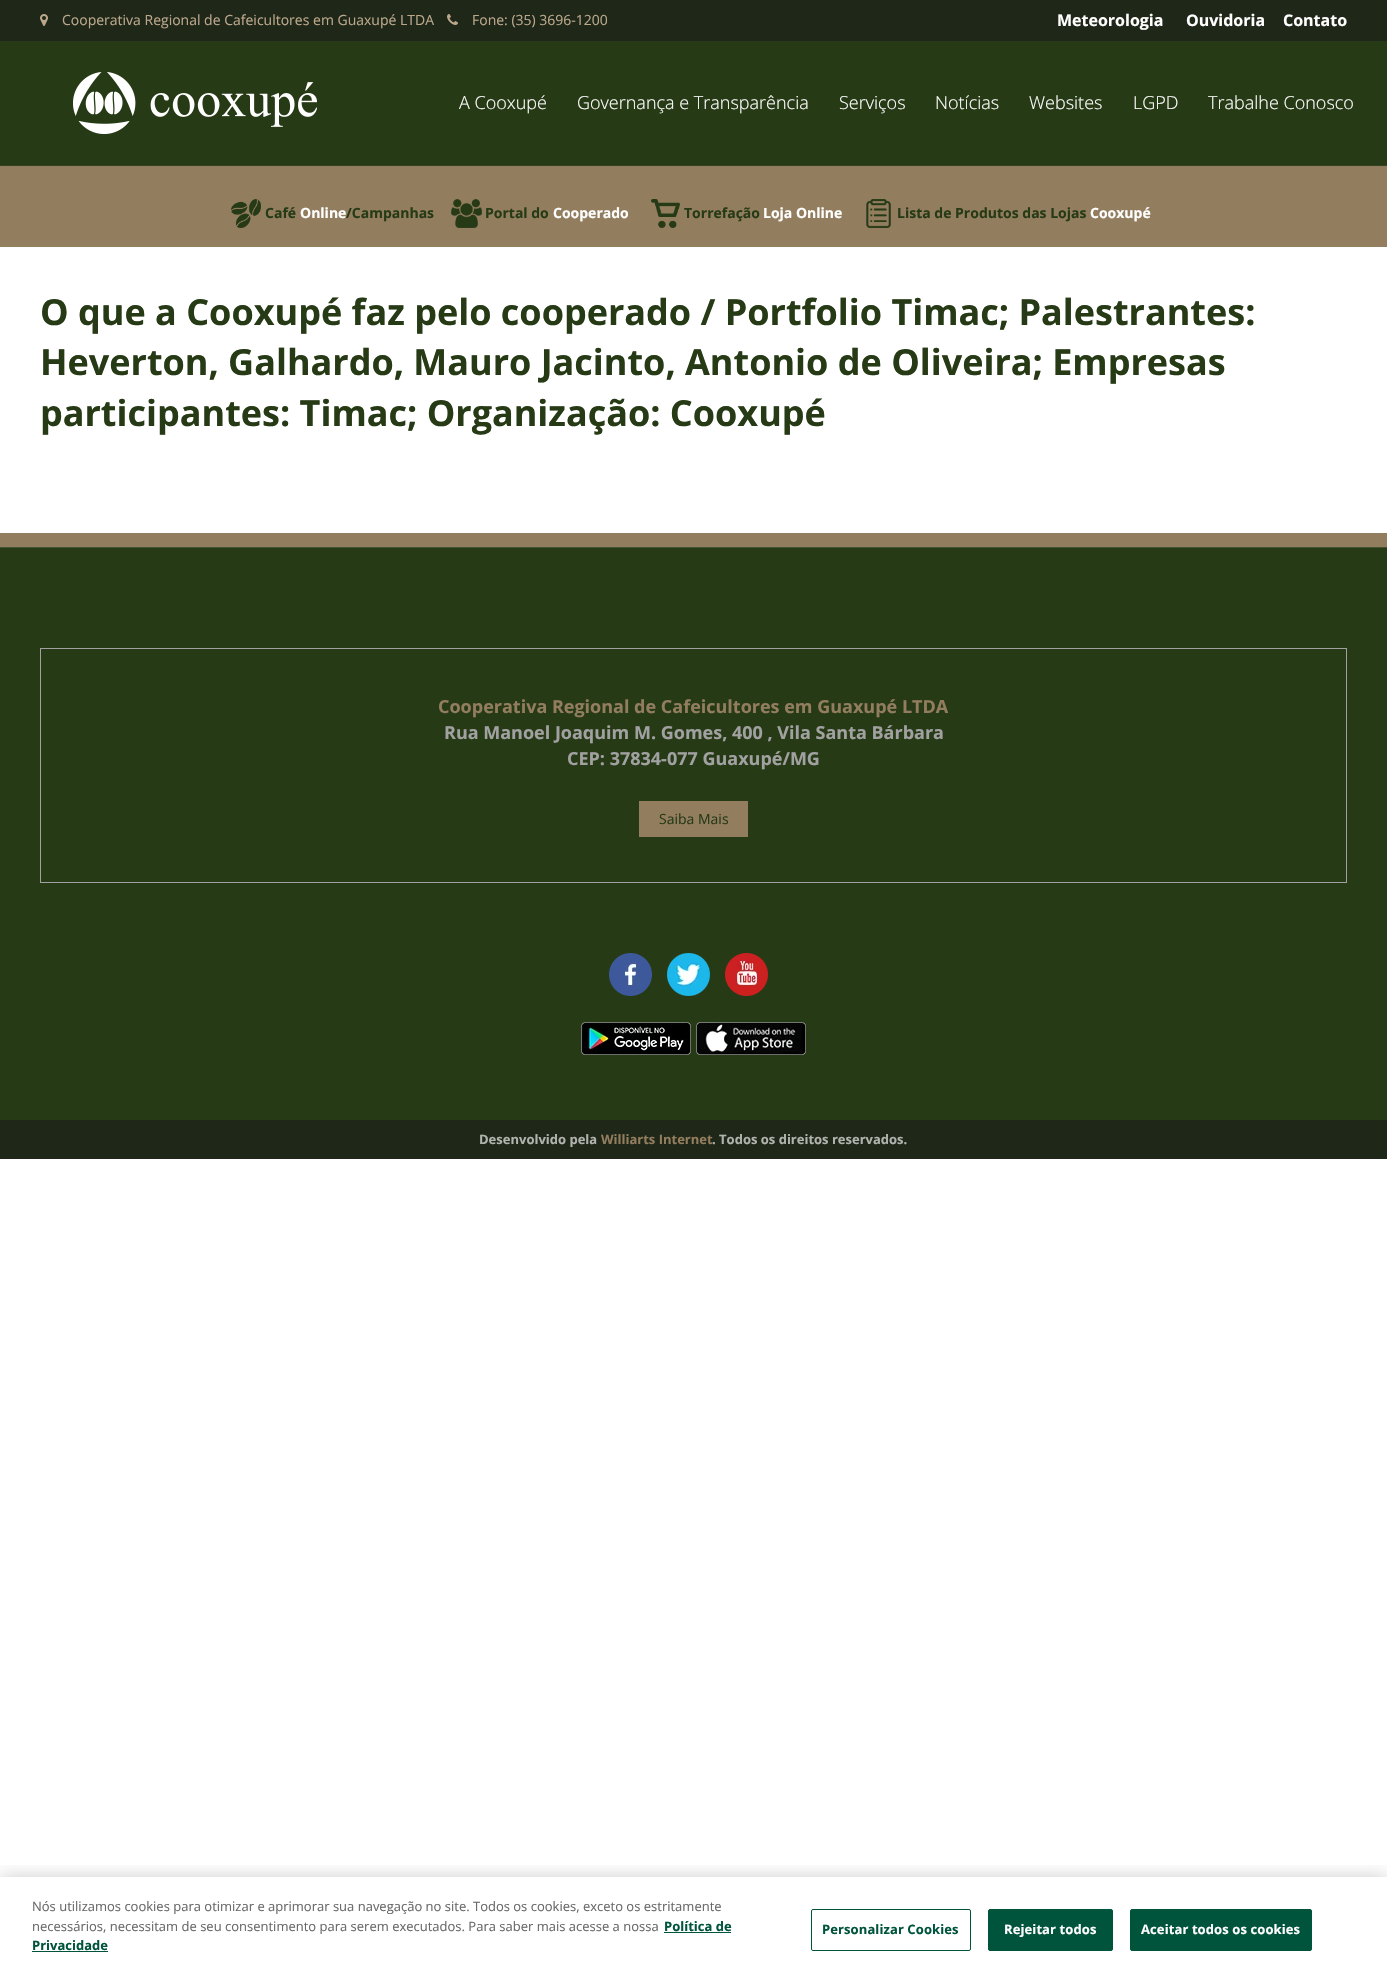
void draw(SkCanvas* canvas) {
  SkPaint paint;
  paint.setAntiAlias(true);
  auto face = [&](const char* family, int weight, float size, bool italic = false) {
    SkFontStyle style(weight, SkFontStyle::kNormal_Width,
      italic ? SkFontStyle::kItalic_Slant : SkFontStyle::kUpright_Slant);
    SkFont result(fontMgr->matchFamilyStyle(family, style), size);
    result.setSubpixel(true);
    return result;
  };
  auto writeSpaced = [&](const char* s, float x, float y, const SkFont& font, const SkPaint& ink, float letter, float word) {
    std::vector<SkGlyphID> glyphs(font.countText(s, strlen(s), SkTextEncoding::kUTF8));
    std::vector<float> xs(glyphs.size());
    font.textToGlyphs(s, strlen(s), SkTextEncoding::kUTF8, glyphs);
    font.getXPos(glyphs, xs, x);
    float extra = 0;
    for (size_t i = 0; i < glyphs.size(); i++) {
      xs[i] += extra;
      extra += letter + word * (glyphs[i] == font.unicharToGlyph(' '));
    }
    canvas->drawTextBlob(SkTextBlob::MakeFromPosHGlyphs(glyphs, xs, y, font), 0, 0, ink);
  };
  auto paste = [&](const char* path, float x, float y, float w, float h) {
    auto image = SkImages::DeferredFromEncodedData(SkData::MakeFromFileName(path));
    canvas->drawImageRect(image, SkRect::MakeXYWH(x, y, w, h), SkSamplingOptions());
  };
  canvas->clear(0xffffffff);
  paint.setColor(0xff1f2718);
  canvas->drawRect(SkRect::MakeXYWH(0, 0, 1387, 41), paint);
  paste("img/1.png", 40, 14, 8, 12);
  paste("img/2.png", 447, 14, 11, 11);
  paint.setColor(0xff273a16);
  canvas->drawRect(SkRect::MakeXYWH(0, 41, 1387, 124), paint);
  paint.setColor(0xff324223);
  canvas->drawRect(SkRect::MakeXYWH(0, 165, 1387, 1), paint);
  paste("img/3.png", 73, 72, 244, 62);
  paint.setColor(0xff927d5e);
  canvas->drawRect(SkRect::MakeXYWH(0, 166, 1387, 81), paint);
  paste("img/4.png", 231, 199, 30, 29);
  paste("img/5.png", 451, 199, 31, 29);
  paste("img/6.png", 651, 199, 29, 29);
  paste("img/7.png", 866, 199, 25, 29);
  {
    const struct { float x, y, w, h; SkColor color; } items[] = {
      {0, 533, 1387, 14, 0xff927d5e},
      {0, 548, 1387, 572, 0xff273a16},
      {0, 547, 1387, 1, 0xff435434},
    };
    for (auto [x, y, w, h, color] : items) {
      paint.setColor(color);
      canvas->drawRect(SkRect::MakeXYWH(x, y, w, h), paint);
    }
  }
  paint.setStroke(true);
  paint.setStrokeWidth(1);
  paint.setColor(0xffa1a1a1);
  canvas->drawRect(SkRect::MakeXYWH(40.5f, 648.5f, 1306, 234), paint);
  paint.setStroke(false);
  paint.setColor(0xff927d5e);
  canvas->drawRect(SkRect::MakeXYWH(639, 801, 109, 36), paint);
  paste("img/8.png", 609, 953, 43, 43);
  paste("img/9.png", 667, 953, 43, 43);
  paste("img/10.png", 725, 953, 43, 43);
  paste("img/11.png", 581, 1022, 110, 33);
  paste("img/12.png", 696, 1022, 110, 33);
  paint.setColor(0xff1f2718);
  canvas->drawRect(SkRect::MakeXYWH(0, 1120, 1387, 39), paint);
  canvas->save();
  canvas->clipRect(SkRect::MakeXYWH(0, 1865, 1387, 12));
  paint.setColor(0x33000000);
  paint.setMaskFilter(SkMaskFilter::MakeBlur(kNormal_SkBlurStyle, 9));
  canvas->drawRect(SkRect::MakeXYWH(0, 1877, 1387, 102), paint);
  paint.setMaskFilter(nullptr);
  canvas->restore();
  paint.setColor(0xff00543c);
  canvas->drawRect(SkRect::MakeXYWH(664, 1932, 67, 1), paint);
  canvas->drawRect(SkRect::MakeXYWH(32, 1951, 76, 1), paint);
  paint.setStroke(true);
  canvas->drawRoundRect(SkRect::MakeXYWH(811.5f, 1909.5f, 159, 41), 1.5f, 1.5f, paint);
  paint.setStroke(false);
  canvas->drawRoundRect(SkRect::MakeXYWH(988.5f, 1909.5f, 124, 41), 1.5f, 1.5f, paint);
  paint.setStroke(true);
  canvas->drawRoundRect(SkRect::MakeXYWH(988.5f, 1909.5f, 124, 41), 1.5f, 1.5f, paint);
  paint.setStroke(false);
  canvas->drawRoundRect(SkRect::MakeXYWH(1130.5f, 1909.5f, 181, 41), 1.5f, 1.5f, paint);
  paint.setStroke(true);
  canvas->drawRoundRect(SkRect::MakeXYWH(1130.5f, 1909.5f, 181, 41), 1.5f, 1.5f, paint);
  auto f0 = face("Open Sans", 400, 14);
  paint.setStroke(false);
  paint.setColor(0xffbba88c);
  canvas->drawString("Cooperativa Regional de Cafeicultores em Guaxupé LTDA", 62, 25, f0, paint);
  canvas->drawString("Fone: (35) 3696-1200", 472, 25, f0, paint);
  auto f1 = face("Open Sans", 700, 16);
  paint.setColor(0xffffffff);
  {
    const struct { const char* s; float x, y; } items[] = {
      {"Meteorologia", 1057, 26},
      {"Ouvidoria", 1186, 26},
      {"Contato", 1283, 26},
    };
    for (auto [s, x, y] : items) {
      canvas->drawString(s, x, y, f1, paint);
    }
  }
  auto f2 = face("Open Sans", 300, 18);
  {
    const struct { const char* s; float x, y; } items[] = {
      {"A Cooxupé", 459, 109},
      {"Governança e Transparência", 577, 109},
      {"Serviços", 839, 109},
      {"Notícias", 935, 109},
      {"Websites", 1029, 109},
      {"LGPD", 1133, 109},
      {"Trabalhe Conosco", 1208, 109},
    };
    for (auto [s, x, y] : items) {
      canvas->drawString(s, x, y, f2, paint);
    }
  }
  auto f3 = face("Open Sans", 700, 14);
  paint.setColor(0xff273a16);
  canvas->drawString("Café", 265, 218, f3, paint);
  paint.setColor(0xffffffff);
  canvas->drawString("Online", 300, 218, f3, paint);
  paint.setColor(0xff273a16);
  canvas->drawString("/Campanhas", 346, 218, f3, paint);
  canvas->drawString("Portal do", 485, 218, f3, paint);
  paint.setColor(0xffffffff);
  canvas->drawString("Cooperado", 553, 218, f3, paint);
  paint.setColor(0xff273a16);
  canvas->drawString("Torrefação", 684, 218, f3, paint);
  paint.setColor(0xffffffff);
  canvas->drawString("Loja Online", 763, 218, f3, paint);
  paint.setColor(0xff273a16);
  canvas->drawString("Lista de Produtos das Lojas", 897, 218, f3, paint);
  paint.setColor(0xffffffff);
  canvas->drawString("Cooxupé", 1090, 218, f3, paint);
  auto f4 = face("Open Sans", 700, 36);
  paint.setColor(0xff273a16);
  {
    const struct { const char* s; float x, y; } items[] = {
      {"O que a Cooxupé faz pelo cooperado / Portfolio Timac; Palestrantes:", 40, 325},
      {"Heverton, Galhardo, Mauro Jacinto, Antonio de Oliveira; Empresas", 40, 375},
      {"participantes: Timac; Organização: Cooxupé", 40, 426},
    };
    for (auto [s, x, y] : items) {
      canvas->drawString(s, x, y, f4, paint);
    }
  }
  auto f5 = face("Open Sans", 700, 18);
  paint.setColor(0xff927d5e);
  canvas->drawString("Cooperativa Regional de Cafeicultores em Guaxupé LTDA", 438, 713, f5, paint);
  paint.setColor(0xffa1a1a1);
  canvas->drawString("Rua Manoel Joaquim M. Gomes, 400 , Vila Santa Bárbara", 444, 739, f5, paint);
  canvas->drawString("CEP: 37834-077 Guaxupé/MG", 567, 765, f5, paint);
  paint.setColor(0xff273a16);
  canvas->drawString("Saiba Mais", 659, 824, f0, paint);
  auto f6 = face("Open Sans", 700, 13);
  paint.setColor(0xffb1b3ae);
  canvas->drawString("Desenvolvido pela", 479, 1144, f6, paint);
  paint.setColor(0xff927d5e);
  canvas->drawString("Williarts Internet", 601, 1144, f6, paint);
  paint.setColor(0xffb1b3ae);
  canvas->drawString(". Todos os direitos reservados.", 712, 1144, f6, paint);
  auto f7 = face("Open Sans", 400, 13);
  paint.setColor(0xff696969);
  canvas->drawString("Nós utilizamos cookies para otimizar e aprimorar sua navegação no site. Todos os cookies, exceto os estritamente", 32, 1911, f7, paint);
  canvas->drawString("necessários, necessitam de seu consentimento para serem executados. Para saber mais acesse a nossa", 32, 1931, f7, paint);
  paint.setColor(0xff00543c);
  canvas->drawString("Política de", 664, 1931, f6, paint);
  canvas->drawString("Privacidade", 32, 1950, f6, paint);
  writeSpaced("Personalizar Cookies", 822, 1934, f6, paint, 0.1f, 0);
  paint.setColor(0xffffffff);
  writeSpaced("Rejeitar todos", 1004, 1934, f6, paint, 0.1f, 0);
  writeSpaced("Aceitar todos os cookies", 1141, 1934, f6, paint, 0.1f, 0);
}
